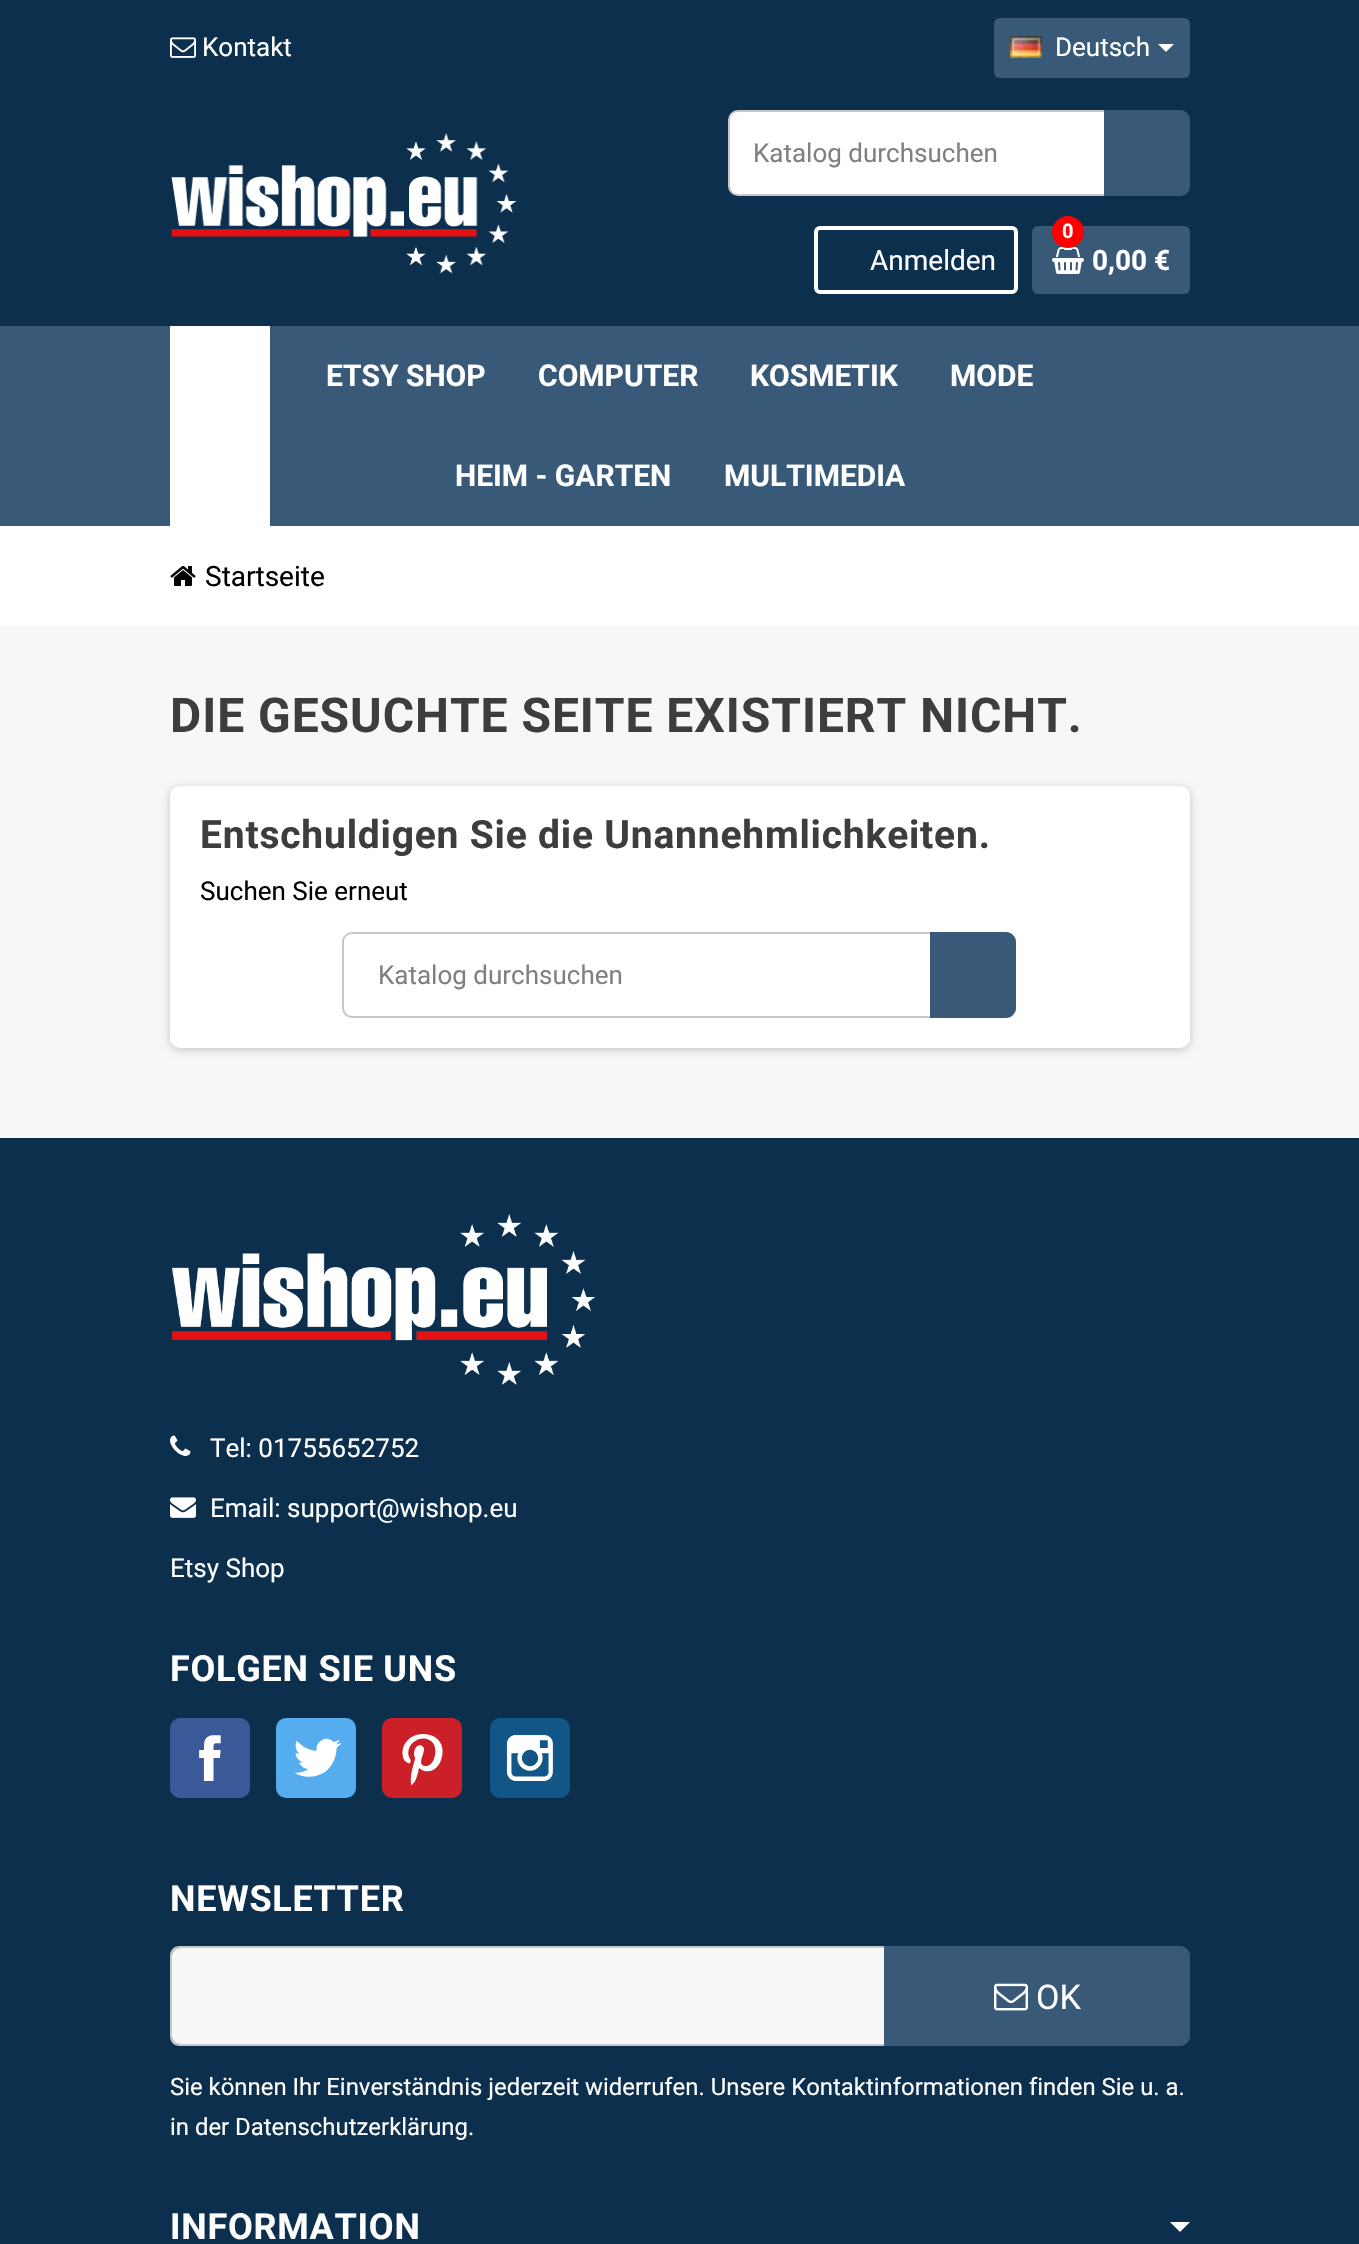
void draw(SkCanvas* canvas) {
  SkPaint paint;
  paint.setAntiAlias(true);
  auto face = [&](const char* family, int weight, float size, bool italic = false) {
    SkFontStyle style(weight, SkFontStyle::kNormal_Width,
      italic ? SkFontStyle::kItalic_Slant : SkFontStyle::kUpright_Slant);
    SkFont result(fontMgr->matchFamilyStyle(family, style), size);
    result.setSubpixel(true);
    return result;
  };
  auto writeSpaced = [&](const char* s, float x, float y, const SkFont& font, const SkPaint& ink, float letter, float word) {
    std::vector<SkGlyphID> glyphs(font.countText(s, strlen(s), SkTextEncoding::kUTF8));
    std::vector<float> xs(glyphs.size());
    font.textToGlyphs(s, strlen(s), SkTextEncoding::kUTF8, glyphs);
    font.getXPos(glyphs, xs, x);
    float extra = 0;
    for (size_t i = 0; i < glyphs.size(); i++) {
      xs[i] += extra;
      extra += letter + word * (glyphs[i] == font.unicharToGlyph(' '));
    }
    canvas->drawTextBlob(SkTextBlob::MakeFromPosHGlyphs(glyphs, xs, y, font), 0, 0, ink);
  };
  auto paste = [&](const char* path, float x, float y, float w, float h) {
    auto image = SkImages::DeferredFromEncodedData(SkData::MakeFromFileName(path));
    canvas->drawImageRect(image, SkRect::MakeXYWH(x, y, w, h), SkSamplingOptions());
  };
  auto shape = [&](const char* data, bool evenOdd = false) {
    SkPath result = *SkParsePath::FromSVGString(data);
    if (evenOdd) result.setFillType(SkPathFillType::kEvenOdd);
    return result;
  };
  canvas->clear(0xff0c2f4e);
  paste("img/1.png", 170, 37, 26, 21);
  paint.setColor(0xff385a78);
  canvas->drawRoundRect(SkRect::MakeXYWH(994, 18, 196, 60), 6, 6, paint);
  paste("img/2.png", 1010, 36, 32, 22);
  paint.setColor(0xffffffff);
  canvas->drawPath(shape("M1158 44H1174L1166 52Z"), paint);
  paste("img/3.png", 171, 133, 346, 141);
  canvas->drawRoundRect(SkRect::MakeXYWH(729, 111, 458, 84), 9, 9, paint);
  paint.setStroke(true);
  paint.setStrokeWidth(2);
  paint.setColor(0xffc7c7c7);
  canvas->drawRoundRect(SkRect::MakeXYWH(729, 111, 458, 84), 9, 9, paint);
  paint.setStroke(false);
  paint.setColor(0xff385a78);
  canvas->drawPath(shape("M1104 110H1180C1185.5 110 1190 114.5 1190 120V186C1190 191.5 1185.5 196 1180 196H1104Z"), paint);
  paint.setStroke(true);
  paint.setStrokeWidth(4);
  paint.setColor(0xffffffff);
  canvas->drawRoundRect(SkRect::MakeXYWH(816, 228, 200, 64), 4, 4, paint);
  paint.setStroke(false);
  paint.setColor(0xff385a78);
  canvas->drawRoundRect(SkRect::MakeXYWH(1032, 226, 158, 68), 6, 6, paint);
  paste("img/4.png", 1052, 247, 32, 27);
  paint.setColor(0xffff0000);
  canvas->drawCircle(1068, 232, 16, paint);
  {
    const struct { float x, y, w, h; SkColor color; } items[] = {
      {0, 326, 1359, 200, 0xff385a78},
      {170, 326, 100, 200, 0xffffffff},
      {0, 626, 1359, 512, 0xfff7f7f7},
      {0, 526, 1359, 100, 0xffffffff},
    };
    for (auto [x, y, w, h, color] : items) {
      paint.setColor(color);
      canvas->drawRect(SkRect::MakeXYWH(x, y, w, h), paint);
    }
  }
  paste("img/5.png", 170, 566, 26, 20);
  paint.setColor(0x33000000);
  paint.setMaskFilter(SkMaskFilter::MakeBlur(kNormal_SkBlurStyle, 5));
  canvas->drawRoundRect(SkRect::MakeXYWH(170, 788, 1020, 262), 10, 10, paint);
  paint.setMaskFilter(nullptr);
  paint.setColor(0xffffffff);
  canvas->drawRoundRect(SkRect::MakeXYWH(170, 786, 1020, 262), 10, 10, paint);
  paint.setStroke(true);
  paint.setStrokeWidth(2);
  paint.setColor(0xffc7c7c7);
  canvas->drawRoundRect(SkRect::MakeXYWH(343, 933, 670, 84), 9, 9, paint);
  paint.setStroke(false);
  paint.setColor(0xff385a78);
  canvas->drawPath(shape("M930 932H1006C1011.5 932 1016 936.5 1016 942V1008C1016 1013.5 1011.5 1018 1006 1018H930Z"), paint);
  paste("img/6.png", 172, 1214, 424, 171);
  paste("img/7.png", 170, 1435, 21, 21);
  paste("img/8.png", 170, 1497, 26, 21);
  paint.setColor(0xff3b5998);
  canvas->drawRoundRect(SkRect::MakeXYWH(170, 1718, 80, 80), 10, 10, paint);
  paste("img/9.png", 199, 1735, 22, 46);
  paint.setColor(0xff55acee);
  canvas->drawRoundRect(SkRect::MakeXYWH(276, 1718, 80, 80), 10, 10, paint);
  paste("img/10.png", 294, 1738, 47, 39);
  paint.setColor(0xffcb2027);
  canvas->drawRoundRect(SkRect::MakeXYWH(382, 1718, 80, 80), 10, 10, paint);
  paste("img/11.png", 402, 1734, 41, 52);
  paint.setColor(0xff125688);
  canvas->drawRoundRect(SkRect::MakeXYWH(490, 1718, 80, 80), 10, 10, paint);
  paste("img/12.png", 506, 1735, 47, 46);
  paint.setColor(0xfff7f7f7);
  canvas->drawPath(shape("M180 1948H884V2044H180C175.5 2044 172 2040.5 172 2036V1956C172 1951.5 175.5 1948 180 1948Z"), paint);
  paint.setColor(0xffc7c7c7);
  canvas->drawPath(shape("M180 1946H884V2046H180C174 2046 170 2042 170 2036V1956C170 1950 174 1946 180 1946ZM180 1948H884V2044H180C176 2044 172 2040 172 2036V1956C172 1952 176 1948 180 1948Z", true), paint);
  paint.setColor(0xff385a78);
  canvas->drawPath(shape("M884 1946H1180C1185.5 1946 1190 1950.5 1190 1956V2036C1190 2041.5 1185.5 2046 1180 2046H884Z"), paint);
  paste("img/13.png", 994, 1983, 34, 28);
  paint.setColor(0xffffffff);
  canvas->drawPath(shape("M1170 2222H1190L1180 2232Z"), paint);
  auto f0 = face("Roboto", 400, 26);
  canvas->drawString("Kontakt", 202, 56, f0, paint);
  canvas->drawString("Deutsch", 1055, 56, f0, paint);
  paint.setColor(0xff808080);
  canvas->drawString("Katalog durchsuchen", 753, 162, f0, paint);
  auto f1 = face("Roboto", 400, 28);
  paint.setColor(0xffffffff);
  canvas->drawString("Anmelden", 870, 270, f1, paint);
  auto f2 = face("Roboto", 700, 20);
  canvas->drawString("0", 1062, 238, f2, paint);
  auto f3 = face("Roboto", 700, 28);
  canvas->drawString("0,00 €", 1092, 270, f3, paint);
  auto f4 = face("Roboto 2", 700, 30);
  {
    const struct { const char* s; float x, y; } items[] = {
      {"ETSY SHOP", 326, 386},
      {"COMPUTER", 538, 386},
      {"KOSMETIK", 750, 386},
      {"MODE", 950, 386},
      {"HEIM - GARTEN", 455, 486},
      {"MULTIMEDIA", 724, 486},
    };
    for (auto [s, x, y] : items) {
      canvas->drawString(s, x, y, f4, paint);
    }
  }
  paint.setColor(0xff000000);
  canvas->drawString("Startseite", 205, 586, f1, paint);
  auto f5 = face("Roboto 2", 700, 48);
  paint.setColor(0xff3d3d3d);
  writeSpaced("DIE GESUCHTE SEITE EXISTIERT NICHT.", 170, 732, f5, paint, 0.95f, 0);
  auto f6 = face("Roboto 2", 700, 39);
  writeSpaced("Entschuldigen Sie die Unannehmlichkeiten.", 200, 848, f6, paint, 0.8f, 0);
  paint.setColor(0xff000000);
  canvas->drawString("Suchen Sie erneut", 200, 900, f0, paint);
  paint.setColor(0xff808080);
  canvas->drawString("Katalog durchsuchen", 378, 984, f0, paint);
  paint.setColor(0xffffffff);
  {
    const struct { const char* s; float x, y; } items[] = {
      {"Tel: 01755652752", 210, 1457},
      {"Email: support@wishop.eu", 210, 1517},
      {"Etsy Shop", 170, 1577},
    };
    for (auto [s, x, y] : items) {
      canvas->drawString(s, x, y, f0, paint);
    }
  }
  auto f7 = face("Roboto 2", 700, 36);
  writeSpaced("FOLGEN SIE UNS", 170, 1681, f7, paint, 0.75f, 0);
  writeSpaced("NEWSLETTER", 170, 1911, f7, paint, 0.75f, 0);
  auto f8 = face("Roboto", 400, 34);
  canvas->drawString("OK", 1036, 2009, f8, paint);
  auto f9 = face("Roboto", 400, 23.9f);
  canvas->drawString("Sie können Ihr Einverständnis jederzeit widerrufen. Unsere Kontaktinformationen finden Sie u. a.", 170, 2095, f9, paint);
  canvas->drawString("in der Datenschutzerklärung.", 170, 2135, f9, paint);
  writeSpaced("INFORMATION", 170, 2239, f7, paint, 0.75f, 0);
}
